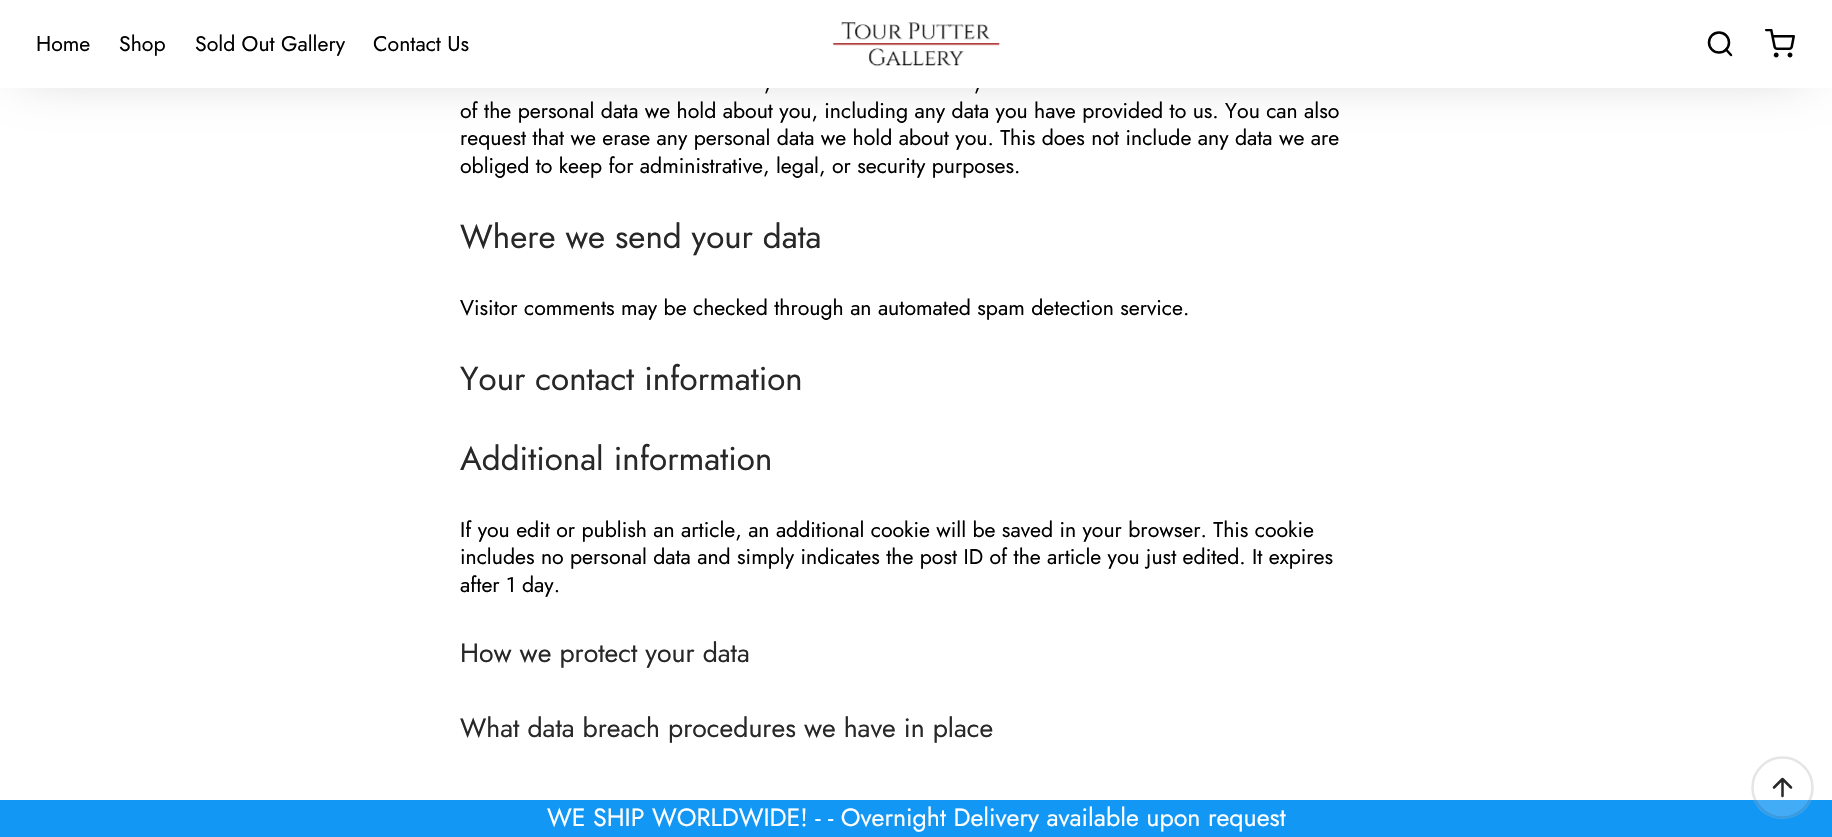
void draw(SkCanvas* canvas) {
  SkPaint paint;
  paint.setAntiAlias(true);
  auto face = [&](const char* family, int weight, float size, bool italic = false) {
    SkFontStyle style(weight, SkFontStyle::kNormal_Width,
      italic ? SkFontStyle::kItalic_Slant : SkFontStyle::kUpright_Slant);
    SkFont result(fontMgr->matchFamilyStyle(family, style), size);
    result.setSubpixel(true);
    return result;
  };
  auto paste = [&](const char* path, float x, float y, float w, float h) {
    auto image = SkImages::DeferredFromEncodedData(SkData::MakeFromFileName(path));
    canvas->drawImageRect(image, SkRect::MakeXYWH(x, y, w, h), SkSamplingOptions());
  };
  auto shape = [&](const char* data, bool evenOdd = false) {
    SkPath result = *SkParsePath::FromSVGString(data);
    if (evenOdd) result.setFillType(SkPathFillType::kEvenOdd);
    return result;
  };
  canvas->clear(0xffffffff);
  paint.setColor(0x4d000000);
  paint.setMaskFilter(SkMaskFilter::MakeBlur(kNormal_SkBlurStyle, 28));
  canvas->drawRect(SkRect::MakeXYWH(23, 28, 1782, 37), paint);
  paint.setMaskFilter(nullptr);
  paint.setColor(0xff1397f5);
  canvas->drawRect(SkRect::MakeXYWH(0, 800, 1832, 37), paint);
  paint.setColor(0x33ffffff);
  canvas->drawPath(shape("M1751 788C1751 770 1765 756 1782 756C1800 756 1814 770 1814 788C1814 805 1800 819 1782 819C1765 819 1751 805 1751 788Z"), paint);
  paint.setStroke(true);
  paint.setStrokeWidth(2.5f);
  paint.setColor(0x1a000000);
  canvas->drawPath(shape("M1752.5 787.5C1752.5 771 1766 757.5 1782.5 757.5C1799 757.5 1812.5 771 1812.5 787.5C1812.5 804 1799 817.5 1782.5 817.5C1766 817.5 1752.5 804 1752.5 787.5Z"), paint);
  paint.setStrokeCap(SkPaint::kRound_Cap);
  paint.setStrokeJoin(SkPaint::kRound_Join);
  paint.setColor(0xff282828);
  canvas->drawPath(shape("M1782.5 796V779M1774 787.5L1782.5 779L1791 787.5"), paint);
  auto f0 = face("Jost", 400, 21.25f);
  paint.setStroke(false);
  paint.setColor(0xff000000);
  canvas->drawString(",", 764, 90, f0, paint);
  canvas->drawString(",", 974, 90, f0, paint);
  paint.setColor(0xffffffff);
  canvas->drawRect(SkRect::MakeXYWH(0, 0, 1832, 88), paint);
  paste("img/1.png", 833, 22, 167, 45);
  paint.setColor(0xff000000);
  {
    const struct { const char* s; float x, y; } items[] = {
      {"Contact Us", 373, 51},
      {"Sold Out Gallery", 195, 51},
      {"Shop", 119, 51},
      {"Home", 36, 51},
    };
    for (auto [s, x, y] : items) {
      canvas->drawString(s, x, y, f0, paint);
    }
  }
  paste("img/2.png", 1765, 29, 30, 29);
  paint.setStroke(true);
  paint.setStrokeCap(SkPaint::kButt_Cap);
  paint.setStrokeJoin(SkPaint::kMiter_Join);
  canvas->drawCircle(1719, 42.5f, 10, paint);
  paint.setStrokeCap(SkPaint::kRound_Cap);
  paint.setStrokeJoin(SkPaint::kRound_Join);
  canvas->drawPath(shape("M1731 55L1726 49.5"), paint);
  paint.setStroke(false);
  {
    const struct { const char* s; float x, y; } items[] = {
      {"of the personal data we hold about you, including any data you have provided to us. You can also", 460, 118},
      {"request that we erase any personal data we hold about you. This does not include any data we are", 460, 145},
      {"obliged to keep for administrative, legal, or security purposes.", 460, 173},
    };
    for (auto [s, x, y] : items) {
      canvas->drawString(s, x, y, f0, paint);
    }
  }
  auto f1 = face("Jost", 400, 33.1f);
  paint.setColor(0xff282828);
  canvas->drawString("Where we send your data", 460, 248, f1, paint);
  paint.setColor(0xff000000);
  canvas->drawString("Visitor comments may be checked through an automated spam detection service.", 460, 315, f0, paint);
  paint.setColor(0xff282828);
  canvas->drawString("Your contact information", 460, 390, f1, paint);
  canvas->drawString("Additional information", 460, 470, f1, paint);
  paint.setColor(0xff000000);
  {
    const struct { const char* s; float x, y; } items[] = {
      {"If you edit or publish an article, an additional cookie will be saved in your browser. This cookie", 460, 537},
      {"includes no personal data and simply indicates the post ID of the article you just edited. It expires", 460, 564},
      {"after 1 day.", 460, 592},
    };
    for (auto [s, x, y] : items) {
      canvas->drawString(s, x, y, f0, paint);
    }
  }
  auto f2 = face("Jost", 400, 26.6f);
  paint.setColor(0xff282828);
  canvas->drawString("How we protect your data", 460, 662, f2, paint);
  canvas->drawString("What data breach procedures we have in place", 460, 737, f2, paint);
  auto f3 = face("Jost", 400, 25);
  paint.setColor(0xffffffff);
  canvas->drawString("WE SHIP WORLDWIDE! - - Overnight Delivery available upon request", 547, 826, f3, paint);
}
